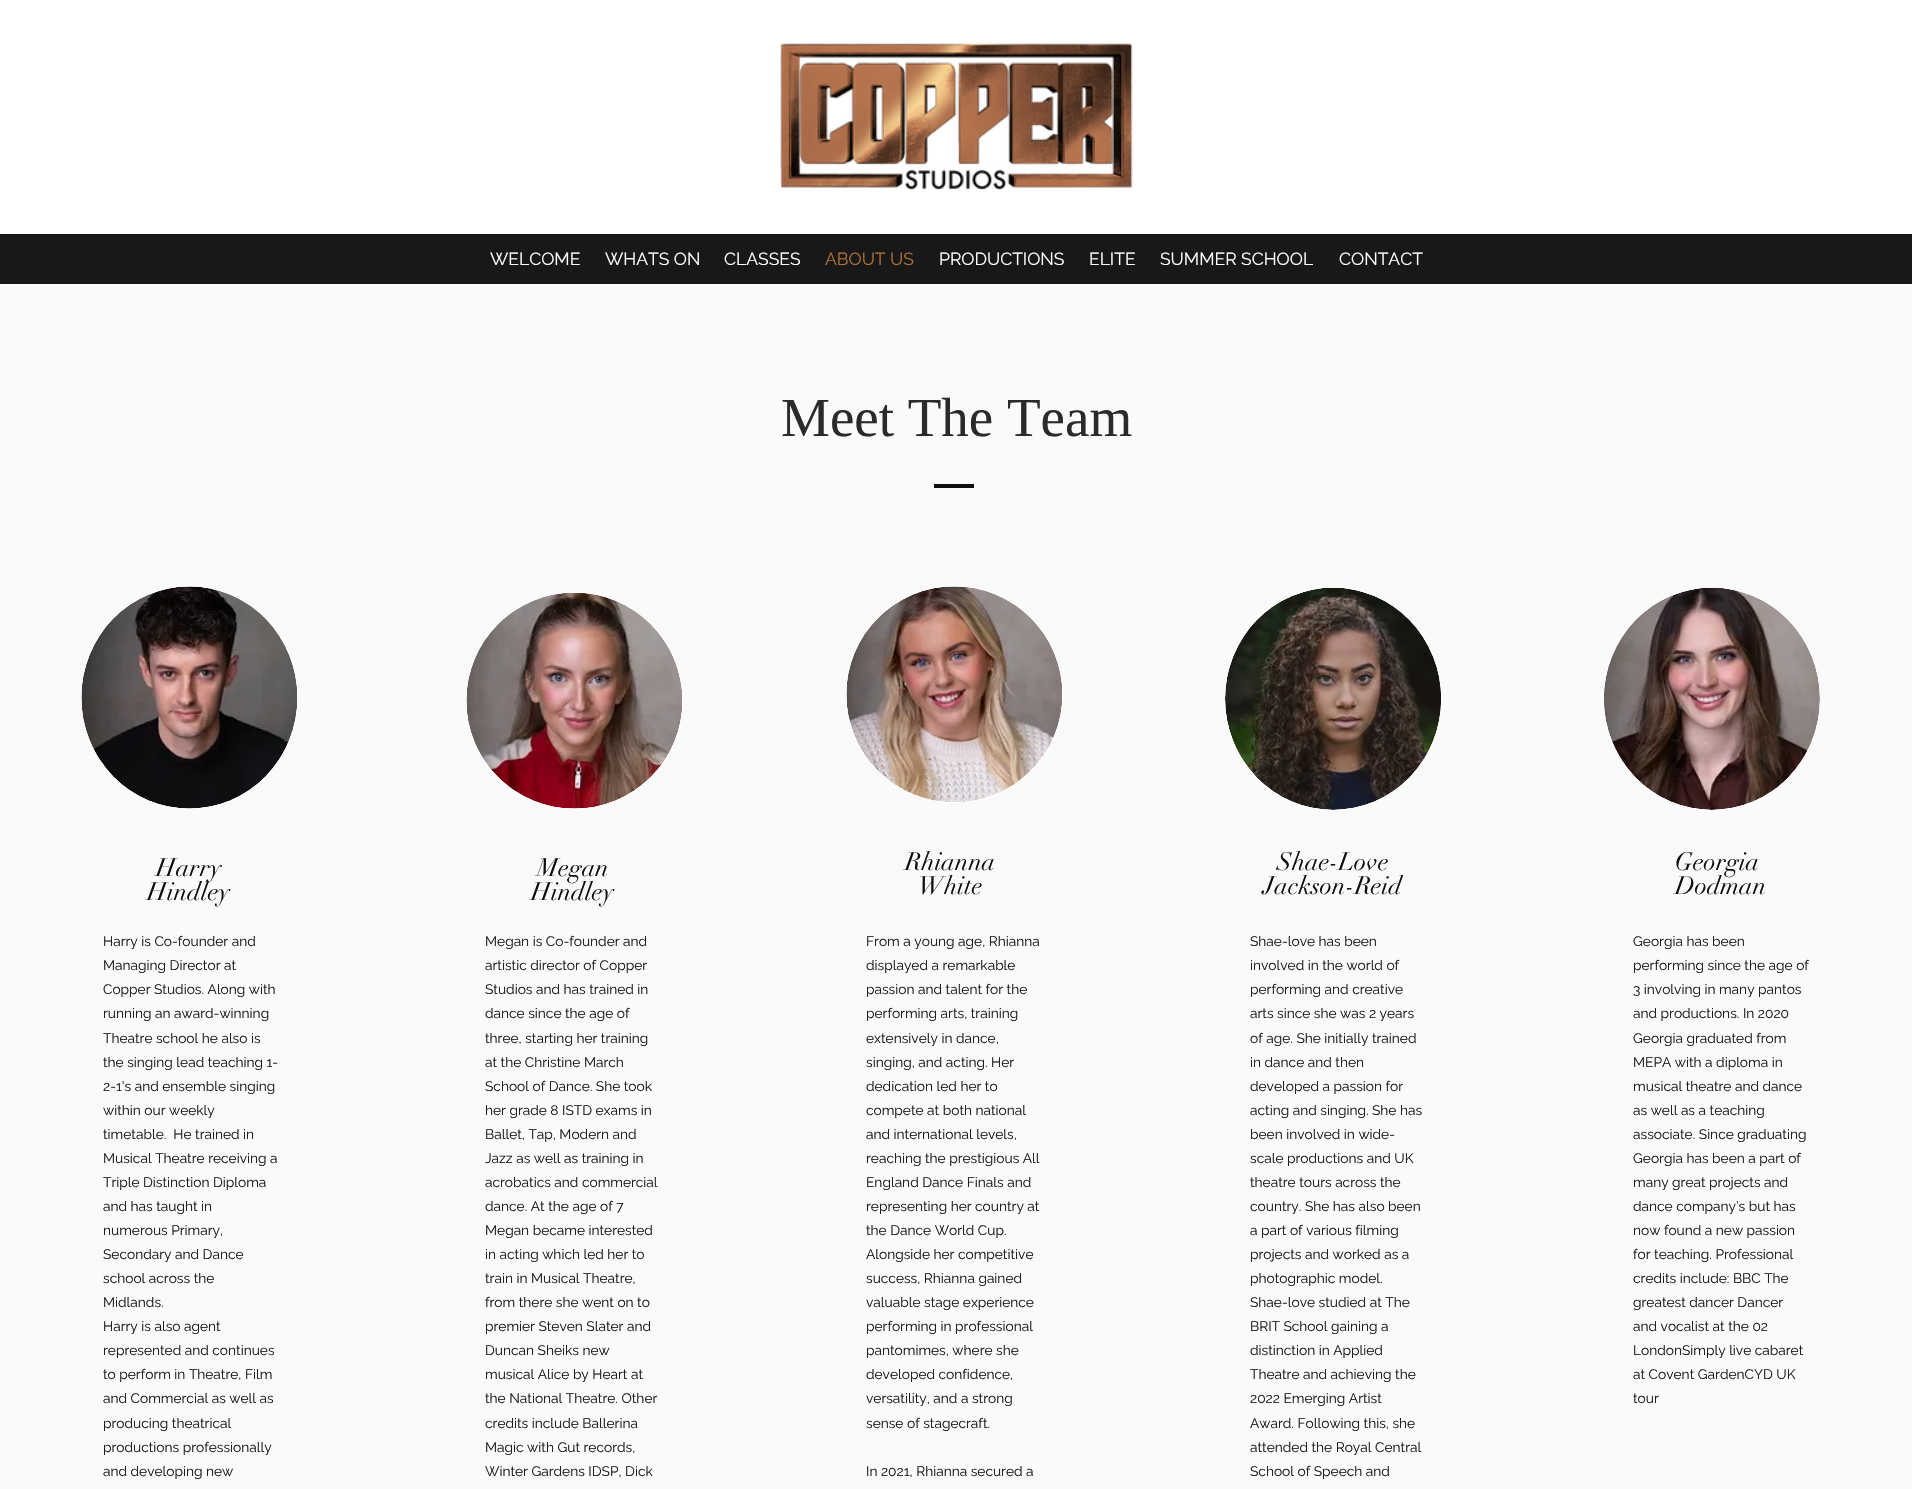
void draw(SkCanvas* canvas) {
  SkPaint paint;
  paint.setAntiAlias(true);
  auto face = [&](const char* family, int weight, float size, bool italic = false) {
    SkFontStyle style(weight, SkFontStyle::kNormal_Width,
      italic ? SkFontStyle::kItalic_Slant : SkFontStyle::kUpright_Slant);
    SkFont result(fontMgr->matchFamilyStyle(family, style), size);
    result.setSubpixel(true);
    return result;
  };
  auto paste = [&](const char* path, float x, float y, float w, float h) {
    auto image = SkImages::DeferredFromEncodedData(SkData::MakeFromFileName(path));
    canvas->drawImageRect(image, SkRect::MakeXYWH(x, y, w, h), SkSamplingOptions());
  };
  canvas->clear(0xffffffff);
  paste("img/1.png", 780, 43, 353, 147);
  {
    const struct { float x, y, w, h; SkColor color; } items[] = {
      {0, 234, 1912, 50, 0xff181818},
      {0, 284, 1912, 1205, 0xfffafafa},
      {934, 484, 40, 4, 0xff0f0f0f},
    };
    for (auto [x, y, w, h, color] : items) {
      paint.setColor(color);
      canvas->drawRect(SkRect::MakeXYWH(x, y, w, h), paint);
    }
  }
  paint.setColor(0xffffffff);
  canvas->drawOval(SkRect::MakeXYWH(81.5f, 586.5f, 216, 222), paint);
  paste("img/2.png", 81, 586, 217, 223);
  canvas->drawRoundRect(SkRect::MakeXYWH(466, 593, 217, 216), 108, 108, paint);
  paste("img/3.png", 466, 592, 216, 217);
  canvas->drawCircle(954.5f, 694.5f, 108.5f, paint);
  paste("img/4.png", 846, 586, 216, 216);
  canvas->drawOval(SkRect::MakeXYWH(1225, 588, 216, 222), paint);
  paste("img/5.png", 1225, 587, 216, 223);
  canvas->drawOval(SkRect::MakeXYWH(1604, 588, 216, 222), paint);
  paste("img/6.png", 1604, 587, 216, 223);
  auto f0 = face("Raleway", 400, 17.5f);
  {
    const struct { const char* s; float x, y; } items[] = {
      {"WELCOME", 490, 265},
      {"WHATS ON", 605, 265},
      {"CLASSES", 724, 265},
    };
    for (auto [s, x, y] : items) {
      canvas->drawString(s, x, y, f0, paint);
    }
  }
  paint.setColor(0xffb07236);
  canvas->drawString("ABOUT US", 825, 265, f0, paint);
  paint.setColor(0xffffffff);
  {
    const struct { const char* s; float x, y; } items[] = {
      {"PRODUCTIONS", 939, 265},
      {"ELITE", 1089, 265},
      {"SUMMER SCHOOL", 1160, 265},
      {"CONTACT", 1339, 265},
    };
    for (auto [s, x, y] : items) {
      canvas->drawString(s, x, y, f0, paint);
    }
  }
  auto f1 = face("Liberation Serif", 400, 55);
  paint.setColor(0xff2a2a2a);
  canvas->drawString("Meet The Team", 781, 436, f1, paint);
  auto f2 = face("didot", 400, 25);
  paint.setColor(0xff0f0f0f);
  canvas->drawString("Harry", 156, 876, f2, paint);
  canvas->drawString("Hindley", 147, 900, f2, paint);
  auto f3 = face("Raleway", 400, 13.75f);
  paint.setColor(0xff181818);
  {
    const struct { const char* s; float x, y; } items[] = {
      {"Harry is Co-founder and", 103, 946},
      {"Managing Director at", 103, 970},
      {"Copper Studios. Along with", 103, 994},
      {"running an award-winning", 103, 1018},
      {"Theatre school he also is", 103, 1043},
      {"the singing lead teaching 1-", 103, 1067},
      {"2-1's and ensemble singing", 103, 1091},
      {"within our weekly", 103, 1115},
      {"timetable.  He trained in", 103, 1139},
      {"Musical Theatre receiving a", 103, 1163},
      {"Triple Distinction Diploma", 103, 1187},
      {"and has taught in", 103, 1211},
      {"numerous Primary,", 103, 1235},
      {"Secondary and Dance", 103, 1259},
      {"school across the", 103, 1283},
      {"Midlands.", 103, 1307},
      {"Harry is also agent", 103, 1331},
      {"represented and continues", 103, 1355},
      {"to perform in Theatre, Film", 103, 1379},
      {"and Commercial as well as", 103, 1403},
      {"producing theatrical", 103, 1428},
      {"productions professionally", 103, 1452},
      {"and developing new", 103, 1476},
    };
    for (auto [s, x, y] : items) {
      canvas->drawString(s, x, y, f3, paint);
    }
  }
  paint.setColor(0xff0f0f0f);
  canvas->drawString("Megan", 537, 876, f2, paint);
  canvas->drawString("Hindley", 531, 900, f2, paint);
  paint.setColor(0xff181818);
  {
    const struct { const char* s; float x, y; } items[] = {
      {"Megan is Co-founder and", 485, 946},
      {"artistic director of Copper", 485, 970},
      {"Studios and has trained in", 485, 994},
      {"dance since the age of", 485, 1018},
      {"three, starting her training", 485, 1043},
      {"at the Christine March", 485, 1067},
      {"School of Dance. She took", 485, 1091},
      {"her grade 8 ISTD exams in", 485, 1115},
      {"Ballet, Tap, Modern and", 485, 1139},
      {"Jazz as well as training in", 485, 1163},
      {"acrobatics and commercial", 485, 1187},
      {"dance. At the age of 7", 485, 1211},
      {"Megan became interested", 485, 1235},
      {"in acting which led her to", 485, 1259},
      {"train in Musical Theatre,", 485, 1283},
      {"from there she went on to", 485, 1307},
      {"premier Steven Slater and", 485, 1331},
      {"Duncan Sheiks new", 485, 1355},
      {"musical Alice by Heart at", 485, 1379},
      {"the National Theatre. Other", 485, 1403},
      {"credits include Ballerina", 485, 1428},
      {"Magic with Gut records,", 485, 1452},
      {"Winter Gardens IDSP, Dick", 485, 1476},
    };
    for (auto [s, x, y] : items) {
      canvas->drawString(s, x, y, f3, paint);
    }
  }
  paint.setColor(0xff0f0f0f);
  canvas->drawString("Rhianna", 905, 870, f2, paint);
  canvas->drawString("White", 918, 894, f2, paint);
  paint.setColor(0xff181818);
  {
    const struct { const char* s; float x, y; } items[] = {
      {"From a young age, Rhianna", 866, 946},
      {"displayed a remarkable", 866, 970},
      {"passion and talent for the", 866, 994},
      {"performing arts, training", 866, 1018},
      {"extensively in dance,", 866, 1043},
      {"singing, and acting. Her", 866, 1067},
      {"dedication led her to", 866, 1091},
      {"compete at both national", 866, 1115},
      {"and international levels,", 866, 1139},
      {"reaching the prestigious All", 866, 1163},
      {"England Dance Finals and", 866, 1187},
      {"representing her country at", 866, 1211},
      {"the Dance World Cup.", 866, 1235},
      {"Alongside her competitive", 866, 1259},
      {"success, Rhianna gained", 866, 1283},
      {"valuable stage experience", 866, 1307},
      {"performing in professional", 866, 1331},
      {"pantomimes, where she", 866, 1355},
      {"developed confidence,", 866, 1379},
      {"versatility, and a strong", 866, 1403},
      {"sense of stagecraft.", 866, 1428},
      {"In 2021, Rhianna secured a", 866, 1476},
    };
    for (auto [s, x, y] : items) {
      canvas->drawString(s, x, y, f3, paint);
    }
  }
  paint.setColor(0xff0f0f0f);
  canvas->drawString("Shae-Love", 1277, 870, f2, paint);
  canvas->drawString("Jackson-Reid", 1263, 894, f2, paint);
  paint.setColor(0xff181818);
  {
    const struct { const char* s; float x, y; } items[] = {
      {"Shae-love has been", 1250, 946},
      {"involved in the world of", 1250, 970},
      {"performing and creative", 1250, 994},
      {"arts since she was 2 years", 1250, 1018},
      {"of age. She initially trained", 1250, 1043},
      {"in dance and then", 1250, 1067},
      {"developed a passion for", 1250, 1091},
      {"acting and singing. She has", 1250, 1115},
      {"been involved in wide-", 1250, 1139},
      {"scale productions and UK", 1250, 1163},
      {"theatre tours across the", 1250, 1187},
      {"country. She has also been", 1250, 1211},
      {"a part of various filming", 1250, 1235},
      {"projects and worked as a", 1250, 1259},
      {"photographic model.", 1250, 1283},
      {"Shae-love studied at The", 1250, 1307},
      {"BRIT School gaining a", 1250, 1331},
      {"distinction in Applied", 1250, 1355},
      {"Theatre and achieving the", 1250, 1379},
      {"2022 Emerging Artist", 1250, 1403},
      {"Award. Following this, she", 1250, 1428},
      {"attended the Royal Central", 1250, 1452},
      {"School of Speech and", 1250, 1476},
    };
    for (auto [s, x, y] : items) {
      canvas->drawString(s, x, y, f3, paint);
    }
  }
  paint.setColor(0xff0f0f0f);
  canvas->drawString("Georgia", 1675, 870, f2, paint);
  canvas->drawString("Dodman", 1675, 894, f2, paint);
  paint.setColor(0xff181818);
  {
    const struct { const char* s; float x, y; } items[] = {
      {"Georgia has been", 1633, 946},
      {"performing since the age of", 1633, 970},
      {"3 involving in many pantos", 1633, 994},
      {"and productions. In 2020", 1633, 1018},
      {"Georgia graduated from", 1633, 1043},
      {"MEPA with a diploma in", 1633, 1067},
      {"musical theatre and dance", 1633, 1091},
      {"as well as a teaching", 1633, 1115},
      {"associate. Since graduating", 1633, 1139},
      {"Georgia has been a part of", 1633, 1163},
      {"many great projects and", 1633, 1187},
      {"dance company’s but has", 1633, 1211},
      {"now found a new passion", 1633, 1235},
      {"for teaching. Professional", 1633, 1259},
      {"credits include: BBC The", 1633, 1283},
      {"greatest dancer Dancer", 1633, 1307},
      {"and vocalist at the 02", 1633, 1331},
      {"LondonSimply live cabaret", 1633, 1355},
      {"at Covent GardenCYD UK", 1633, 1379},
      {"tour", 1633, 1403},
    };
    for (auto [s, x, y] : items) {
      canvas->drawString(s, x, y, f3, paint);
    }
  }
}
